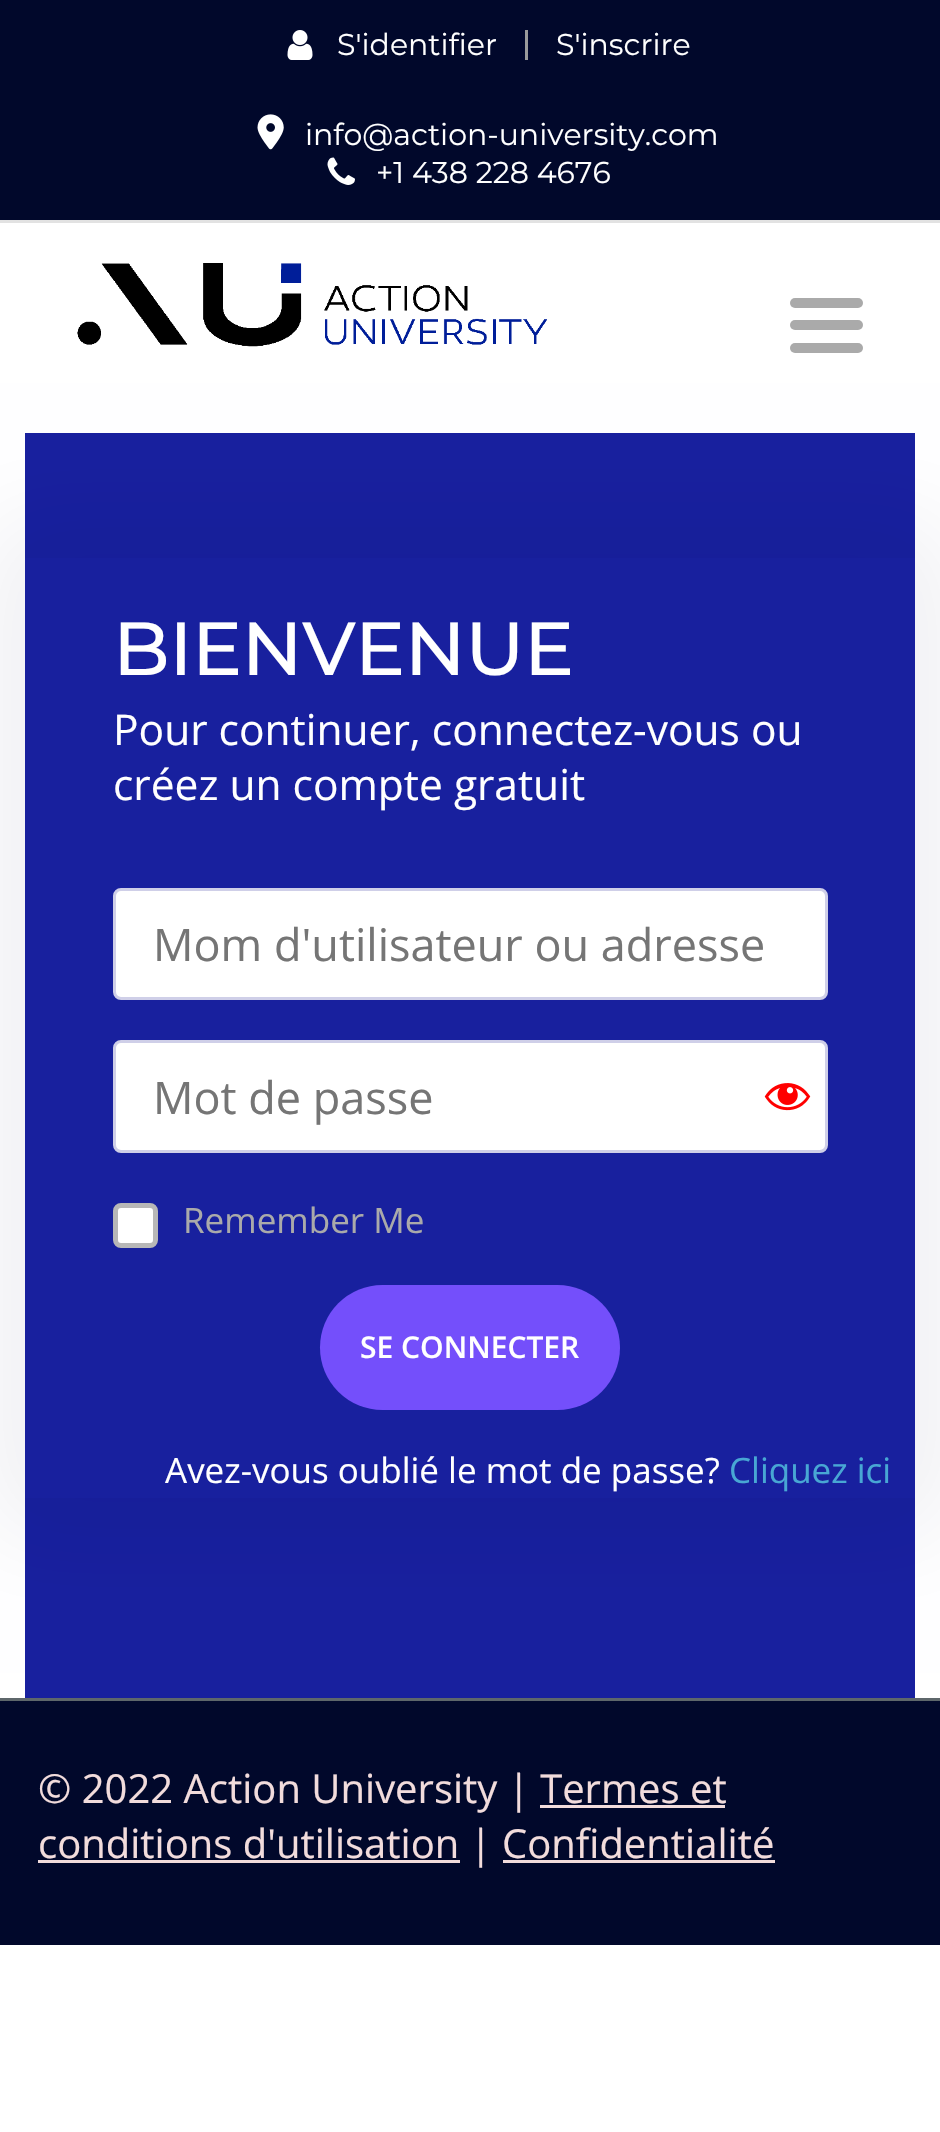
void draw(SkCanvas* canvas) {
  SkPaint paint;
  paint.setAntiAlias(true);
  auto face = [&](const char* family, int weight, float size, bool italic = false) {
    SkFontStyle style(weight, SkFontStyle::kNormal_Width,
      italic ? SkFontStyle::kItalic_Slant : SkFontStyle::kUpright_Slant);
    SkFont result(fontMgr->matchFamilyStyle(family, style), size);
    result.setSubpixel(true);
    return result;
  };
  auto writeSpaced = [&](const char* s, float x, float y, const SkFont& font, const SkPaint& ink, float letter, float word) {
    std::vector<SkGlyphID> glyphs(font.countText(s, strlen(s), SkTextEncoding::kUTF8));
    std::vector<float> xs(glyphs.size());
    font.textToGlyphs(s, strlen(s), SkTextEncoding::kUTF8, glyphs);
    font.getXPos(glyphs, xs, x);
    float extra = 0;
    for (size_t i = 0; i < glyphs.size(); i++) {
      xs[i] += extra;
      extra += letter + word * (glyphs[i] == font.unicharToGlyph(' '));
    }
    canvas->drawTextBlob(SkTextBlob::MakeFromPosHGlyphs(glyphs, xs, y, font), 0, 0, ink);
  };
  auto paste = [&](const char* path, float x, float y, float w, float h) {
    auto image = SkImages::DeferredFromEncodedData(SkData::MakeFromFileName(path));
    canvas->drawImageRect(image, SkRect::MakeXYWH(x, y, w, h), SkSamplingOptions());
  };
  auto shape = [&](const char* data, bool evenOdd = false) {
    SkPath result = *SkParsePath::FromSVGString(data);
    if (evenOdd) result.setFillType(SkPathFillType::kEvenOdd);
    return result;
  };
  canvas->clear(0xffffffff);
  paint.setColor(0xff01082b);
  canvas->drawRect(SkRect::MakeXYWH(0, 0, 940, 220), paint);
  paint.setColor(0xffe2e2e2);
  canvas->drawRect(SkRect::MakeXYWH(0, 220, 940, 3), paint);
  paste("img/1.png", 287, 30, 26, 30);
  paint.setColor(0xff9a9a9a);
  canvas->drawRect(SkRect::MakeXYWH(525, 30, 3, 30), paint);
  paste("img/2.png", 257, 114, 27, 36);
  paste("img/3.png", 327, 157, 28, 28);
  paste("img/4.png", 77, 263, 470, 84);
  paint.setColor(0xffaaaaaa);
  canvas->drawRoundRect(SkRect::MakeXYWH(790, 298, 73, 10), 5, 5, paint);
  canvas->drawRoundRect(SkRect::MakeXYWH(790, 320, 73, 10), 5, 5, paint);
  canvas->drawRoundRect(SkRect::MakeXYWH(790, 343, 73, 10), 5, 5, paint);
  paint.setColor(0xff18209e);
  canvas->drawRect(SkRect::MakeXYWH(25, 433, 890, 1265), paint);
  canvas->save();
  canvas->clipPath(shape("M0 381H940V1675H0ZM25 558H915V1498H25Z", true), true);
  paint.setColor(0x0f020835);
  paint.setMaskFilter(SkMaskFilter::MakeBlur(kNormal_SkBlurStyle, 47));
  canvas->drawRect(SkRect::MakeXYWH(-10, 523, 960, 1010), paint);
  paint.setMaskFilter(nullptr);
  canvas->restore();
  paint.setColor(0xffffffff);
  canvas->drawRoundRect(SkRect::MakeXYWH(114.5f, 889.5f, 712, 109), 6.5f, 6.5f, paint);
  paint.setStroke(true);
  paint.setStrokeWidth(3);
  paint.setColor(0xffcfcfe8);
  canvas->drawRoundRect(SkRect::MakeXYWH(114.5f, 889.5f, 712, 109), 6.5f, 6.5f, paint);
  paint.setStroke(false);
  paint.setColor(0xffffffff);
  canvas->drawRoundRect(SkRect::MakeXYWH(114.5f, 1041.5f, 712, 110), 6.5f, 6.5f, paint);
  paint.setStroke(true);
  paint.setColor(0xffcfcfe8);
  canvas->drawRoundRect(SkRect::MakeXYWH(114.5f, 1041.5f, 712, 110), 6.5f, 6.5f, paint);
  paste("img/5.png", 764, 1083, 47, 28);
  paint.setStroke(false);
  paint.setColor(0xffffffff);
  canvas->drawRoundRect(SkRect::MakeXYWH(115.5f, 1205.5f, 40, 40), 5.5f, 5.5f, paint);
  paint.setStroke(true);
  paint.setStrokeWidth(5);
  paint.setColor(0xffb7b7b7);
  canvas->drawRoundRect(SkRect::MakeXYWH(115.5f, 1205.5f, 40, 40), 5.5f, 5.5f, paint);
  paint.setStroke(false);
  paint.setColor(0xff744ffb);
  canvas->drawRoundRect(SkRect::MakeXYWH(320, 1285, 300, 125), 62.5f, 62.5f, paint);
  {
    const struct { float x, y, w, h; SkColor color; } items[] = {
      {0, 1701, 940, 244, 0xff01082b},
      {0, 1698, 940, 3, 0xff5e676b},
      {540, 1805, 185, 3, 0xfff2dcdc},
      {38, 1860, 422, 3, 0xfff2dcdc},
      {503, 1860, 272, 3, 0xfff2dcdc},
    };
    for (auto [x, y, w, h, color] : items) {
      paint.setColor(color);
      canvas->drawRect(SkRect::MakeXYWH(x, y, w, h), paint);
    }
  }
  auto f0 = face("Montserrat", 400, 30);
  paint.setColor(0xffffffff);
  {
    const struct { const char* s; float x, y; } items[] = {
      {"S'identifier", 337, 55},
      {"S'inscrire", 556, 55},
      {"info@action-university.com", 305, 145},
      {"+1 438 228 4676", 376, 183},
    };
    for (auto [s, x, y] : items) {
      canvas->drawString(s, x, y, f0, paint);
    }
  }
  auto f1 = face("Montserrat", 500, 75);
  writeSpaced("BIENVENUE", 113, 675, f1, paint, -0.5f, 0);
  auto f2 = face("Open Sans", 400, 42.5f);
  canvas->drawString("Pour continuer, connectez-vous ou", 113, 745, f2, paint);
  canvas->drawString("créez un compte gratuit", 113, 800, f2, paint);
  auto f3 = face("Open Sans", 400, 45);
  paint.setColor(0xff757575);
  canvas->drawString("Mom d'utilisateur ou adresse", 153, 961, f3, paint);
  canvas->drawString("Mot de passe", 153, 1114, f3, paint);
  auto f4 = face("Open Sans", 400, 35);
  paint.setColor(0xffaaaaaa);
  canvas->drawString("Remember Me", 183, 1233, f4, paint);
  auto f5 = face("Open Sans", 600, 30);
  paint.setColor(0xffffffff);
  canvas->drawString("SE CONNECTER", 360, 1358, f5, paint);
  canvas->drawString("Avez-vous oublié le mot de passe?", 165, 1483, f4, paint);
  paint.setColor(0xff48a7d4);
  canvas->drawString("Cliquez ici", 729, 1483, f4, paint);
  auto f6 = face("Open Sans", 400, 40);
  paint.setColor(0xfff2dcdc);
  canvas->drawString("© 2022 Action University | Termes et", 38, 1803, f6, paint);
  canvas->drawString("conditions d'utilisation | Confidentialité", 38, 1858, f6, paint);
}
